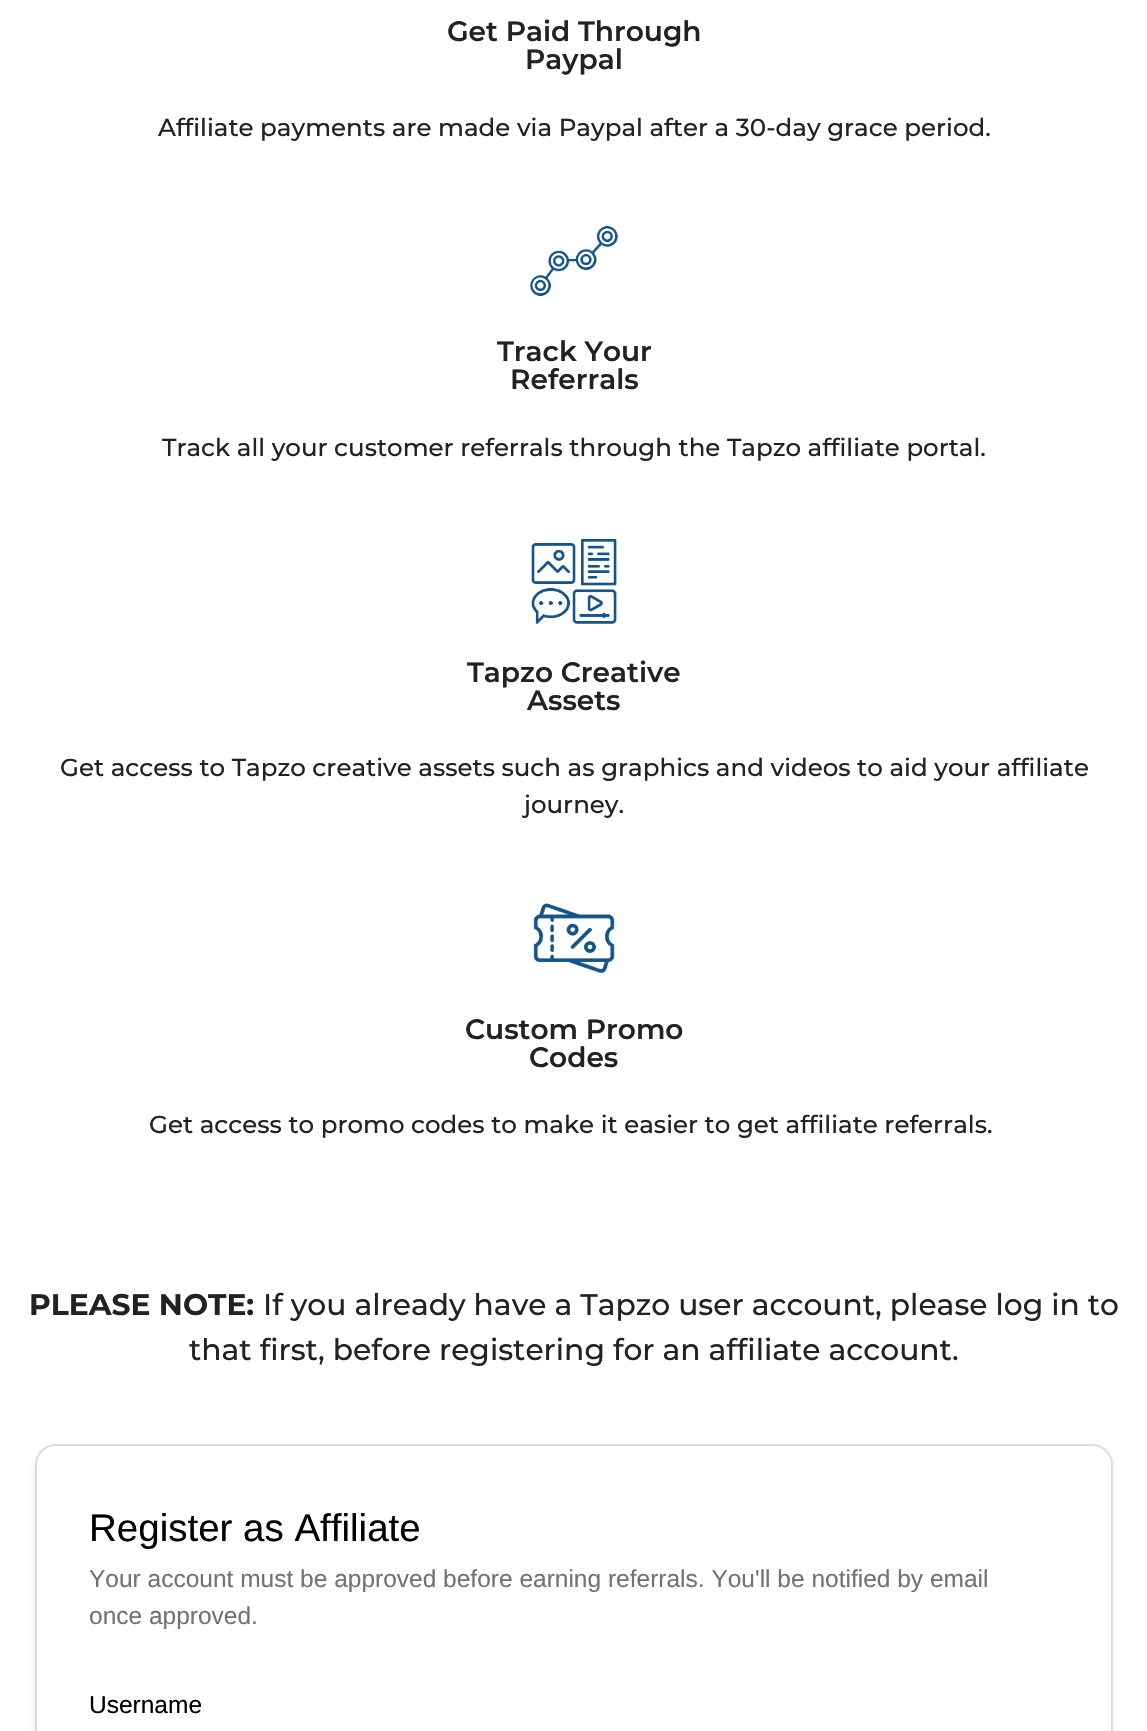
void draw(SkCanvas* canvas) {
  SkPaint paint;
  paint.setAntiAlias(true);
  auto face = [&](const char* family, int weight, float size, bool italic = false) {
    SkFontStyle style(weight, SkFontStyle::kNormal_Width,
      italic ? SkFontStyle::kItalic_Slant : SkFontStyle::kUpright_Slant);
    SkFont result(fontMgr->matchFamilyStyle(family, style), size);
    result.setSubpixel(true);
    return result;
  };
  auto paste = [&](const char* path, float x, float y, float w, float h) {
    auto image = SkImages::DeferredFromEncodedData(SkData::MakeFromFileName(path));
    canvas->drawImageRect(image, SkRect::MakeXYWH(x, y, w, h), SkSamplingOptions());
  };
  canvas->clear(0xffffffff);
  paste("img/1.png", 530, 226, 88, 70);
  paste("img/2.png", 531, 539, 86, 85);
  paste("img/3.png", 533, 903, 82, 70);
  paint.setColor(0x14000000);
  paint.setMaskFilter(SkMaskFilter::MakeBlur(kNormal_SkBlurStyle, 3.5f));
  canvas->drawRoundRect(SkRect::MakeXYWH(35, 1447, 1078, 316), 21, 21, paint);
  paint.setMaskFilter(nullptr);
  paint.setColor(0xffffffff);
  canvas->drawRoundRect(SkRect::MakeXYWH(36, 1445, 1076, 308), 20, 20, paint);
  paint.setStroke(true);
  paint.setStrokeWidth(2);
  paint.setColor(0xffdadce0);
  canvas->drawRoundRect(SkRect::MakeXYWH(36, 1445, 1076, 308), 20, 20, paint);
  auto f0 = face("Montserrat", 600, 28);
  paint.setStroke(false);
  paint.setColor(0xff222222);
  canvas->drawString("Get Paid Through", 447, 41, f0, paint);
  canvas->drawString("Paypal", 525, 69, f0, paint);
  auto f1 = face("Montserrat", 500, 24.5f);
  canvas->drawString("Affiliate payments are made via Paypal after a 30-day grace period.", 158, 136, f1, paint);
  canvas->drawString("Track Your", 497, 361, f0, paint);
  canvas->drawString("Referrals", 510, 389, f0, paint);
  canvas->drawString("Track all your customer referrals through the Tapzo affiliate portal.", 162, 456, f1, paint);
  canvas->drawString("Tapzo Creative", 467, 682, f0, paint);
  canvas->drawString("Assets", 527, 710, f0, paint);
  canvas->drawString("Get access to Tapzo creative assets such as graphics and videos to aid your affiliate", 60, 776, f1, paint);
  canvas->drawString("journey.", 524, 813, f1, paint);
  canvas->drawString("Custom Promo", 465, 1039, f0, paint);
  canvas->drawString("Codes", 529, 1067, f0, paint);
  canvas->drawString("Get access to promo codes to make it easier to get affiliate referrals.", 149, 1133, f1, paint);
  auto f2 = face("Montserrat", 700, 29.75f);
  canvas->drawString("PLEASE NOTE:", 29, 1315, f2, paint);
  auto f3 = face("Montserrat", 500, 29.75f);
  canvas->drawString("If you already have a Tapzo user account, please log in to", 263, 1315, f3, paint);
  canvas->drawString("that first, before registering for an affiliate account.", 189, 1360, f3, paint);
  auto f4 = face("Liberation Sans", 400, 38.5f);
  paint.setColor(0xff000000);
  canvas->drawString("Register as Affiliate", 89, 1541, f4, paint);
  auto f5 = face("Liberation Sans", 400, 24.5f);
  paint.setColor(0xff727272);
  canvas->drawString("Your account must be approved before earning referrals. You'll be notified by email", 89, 1587, f5, paint);
  canvas->drawString("once approved.", 89, 1624, f5, paint);
  paint.setColor(0xff000000);
  canvas->drawString("Username", 89, 1713, f5, paint);
}
